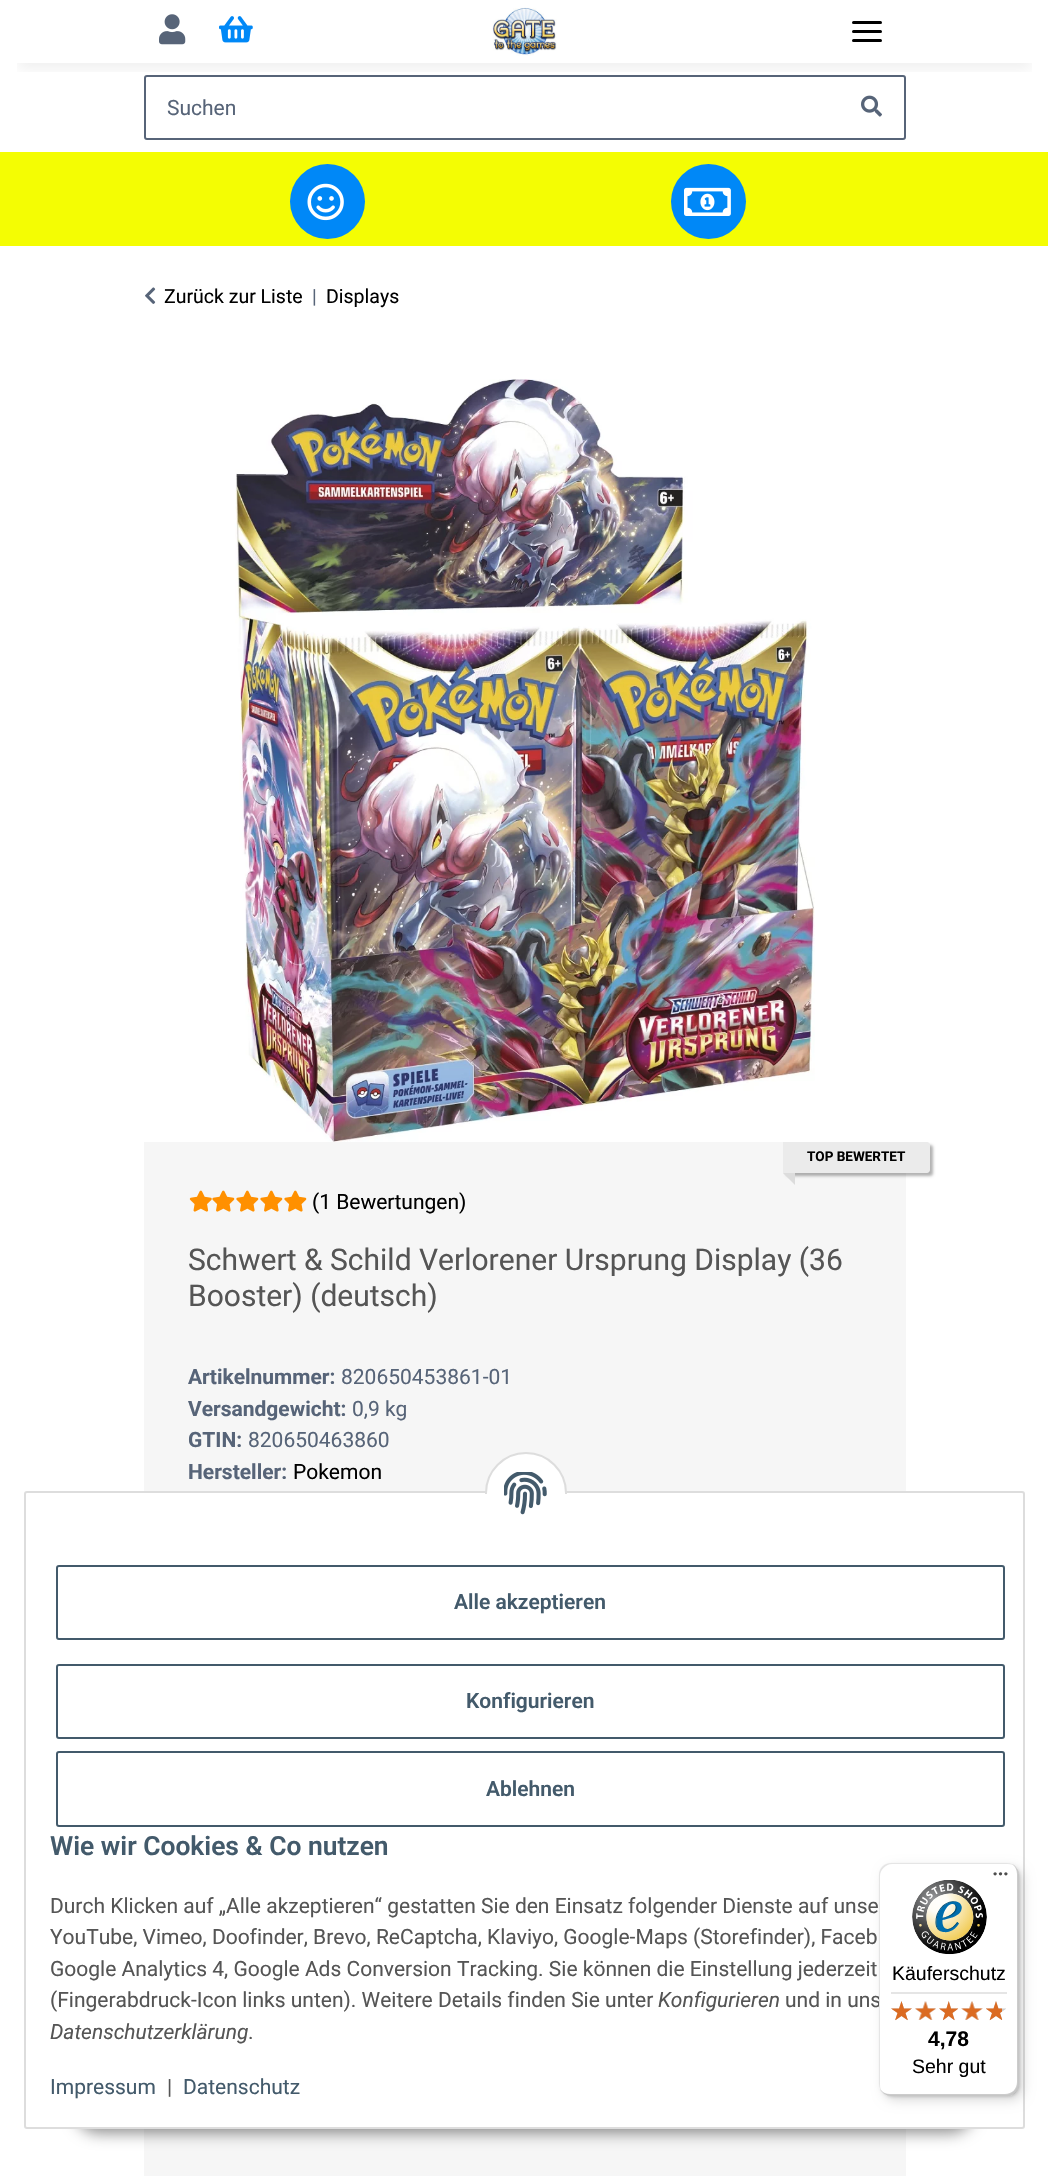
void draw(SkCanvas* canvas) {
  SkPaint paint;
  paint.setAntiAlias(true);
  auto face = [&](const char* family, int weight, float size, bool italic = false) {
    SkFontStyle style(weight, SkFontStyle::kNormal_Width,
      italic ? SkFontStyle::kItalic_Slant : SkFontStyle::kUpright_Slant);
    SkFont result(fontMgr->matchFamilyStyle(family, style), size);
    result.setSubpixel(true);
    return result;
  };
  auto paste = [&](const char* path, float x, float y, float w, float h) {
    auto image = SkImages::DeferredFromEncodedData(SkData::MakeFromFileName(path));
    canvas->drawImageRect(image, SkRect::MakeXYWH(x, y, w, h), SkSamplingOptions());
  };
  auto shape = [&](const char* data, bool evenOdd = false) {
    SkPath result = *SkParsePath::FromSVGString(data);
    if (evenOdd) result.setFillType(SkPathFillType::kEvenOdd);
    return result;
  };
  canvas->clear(0xffffffff);
  paint.setStroke(true);
  paint.setStrokeWidth(2);
  paint.setColor(0xff576478);
  canvas->drawRoundRect(SkRect::MakeXYWH(145, 76, 760, 63), 2, 2, paint);
  canvas->save();
  canvas->clipRect(SkRect::MakeXYWH(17, 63, 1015, 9));
  paint.setStroke(false);
  paint.setColor(0x0f000000);
  paint.setMaskFilter(SkMaskFilter::MakeBlur(kNormal_SkBlurStyle, 7));
  canvas->drawRect(SkRect::MakeXYWH(18, 42, 1013, 27), paint);
  paint.setMaskFilter(nullptr);
  canvas->restore();
  paste("img/1.png", 159, 14, 27, 31);
  paste("img/2.png", 219, 16, 34, 27);
  paste("img/3.png", 492, 7, 65, 49);
  paint.setColor(0xff000000);
  canvas->drawRoundRect(SkRect::MakeXYWH(852, 30, 30, 3), 1.5f, 1.5f, paint);
  canvas->drawRoundRect(SkRect::MakeXYWH(852, 21, 30, 3), 1.5f, 1.5f, paint);
  canvas->drawRoundRect(SkRect::MakeXYWH(852, 39, 30, 3), 1.5f, 1.5f, paint);
  paste("img/4.png", 861, 95, 21, 22);
  paint.setColor(0xfff4fd03);
  canvas->drawRect(SkRect::MakeXYWH(0, 152, 1048, 94), paint);
  paint.setColor(0xff0088f7);
  canvas->drawCircle(327.5f, 201.5f, 37.5f, paint);
  paste("img/5.png", 307, 183, 37, 38);
  canvas->drawCircle(708.5f, 201.5f, 37.5f, paint);
  paste("img/6.png", 684, 187, 47, 29);
  paste("img/7.png", 145, 287, 11, 17);
  paste("img/8.png", 235, 379, 580, 763);
  paint.setColor(0xfff6f6f6);
  canvas->drawRect(SkRect::MakeXYWH(144, 1142, 762, 1034), paint);
  paint.setColor(0x4d000000);
  paint.setMaskFilter(SkMaskFilter::MakeBlur(kNormal_SkBlurStyle, 1.5f));
  canvas->drawRoundRect(SkRect::MakeXYWH(786, 1145, 147, 31), 3, 3, paint);
  paint.setMaskFilter(nullptr);
  paint.setColor(0xffebebeb);
  canvas->drawPath(shape("M783 1142H927C928.5 1142 930 1143.5 930 1145V1170C930 1171.5 928.5 1173 927 1173H783Z"), paint);
  paint.setColor(0xffdcdcdc);
  canvas->drawPath(shape("M795 1173V1185L783 1173Z"), paint);
  paste("img/9.png", 189, 1190, 23, 22);
  paste("img/10.png", 212, 1190, 23, 22);
  paste("img/10.png", 236, 1190, 23, 22);
  paste("img/10.png", 260, 1190, 23, 22);
  paste("img/10.png", 284, 1190, 23, 22);
  paint.setColor(0x73000000);
  paint.setMaskFilter(SkMaskFilter::MakeBlur(kNormal_SkBlurStyle, 7.5f));
  canvas->drawRoundRect(SkRect::MakeXYWH(75, 2085, 899, 48), 24, 24, paint);
  paint.setMaskFilter(nullptr);
  paint.setColor(0xffffffff);
  canvas->drawRoundRect(SkRect::MakeXYWH(25, 1492, 999, 636), 2, 2, paint);
  paint.setStroke(true);
  paint.setColor(0xffdddddd);
  canvas->drawRoundRect(SkRect::MakeXYWH(25, 1492, 999, 636), 2, 2, paint);
  paint.setStroke(false);
  paint.setColor(0xffffffff);
  canvas->drawRoundRect(SkRect::MakeXYWH(486, 1453, 80, 81), 40, 40, paint);
  paint.setStroke(true);
  paint.setColor(0xffdddddd);
  canvas->drawRoundRect(SkRect::MakeXYWH(486, 1453, 80, 81), 40, 40, paint);
  paint.setStroke(false);
  paint.setColor(0xffffffff);
  canvas->drawRect(SkRect::MakeXYWH(485, 1494, 82, 41), paint);
  paste("img/11.png", 504, 1472, 43, 43);
  paint.setStroke(true);
  paint.setColor(0xff435a6b);
  canvas->drawRoundRect(SkRect::MakeXYWH(57, 1566, 947, 73), 2, 2, paint);
  canvas->drawRoundRect(SkRect::MakeXYWH(57, 1665, 947, 73), 2, 2, paint);
  canvas->drawRoundRect(SkRect::MakeXYWH(57, 1752, 947, 74), 2, 2, paint);
  paint.setStroke(false);
  paint.setColor(0x26000000);
  paint.setMaskFilter(SkMaskFilter::MakeBlur(kNormal_SkBlurStyle, 6));
  canvas->drawRoundRect(SkRect::MakeXYWH(884, 1868, 139, 232), 12, 12, paint);
  paint.setMaskFilter(nullptr);
  paint.setMaskFilter(SkMaskFilter::MakeBlur(kNormal_SkBlurStyle, 1.5f));
  canvas->drawRoundRect(SkRect::MakeXYWH(881, 1865, 139, 232), 12, 12, paint);
  paint.setMaskFilter(nullptr);
  auto f0 = face("Roboto", 400, 21);
  paint.setColor(0xff576478);
  canvas->drawString("Suchen", 167, 115, f0, paint);
  auto f1 = face("Roboto", 400, 19.5f);
  paint.setColor(0xff000000);
  canvas->drawString("Zurück zur Liste", 164, 303, f1, paint);
  paint.setColor(0xff576478);
  canvas->drawString("|", 312, 303, f1, paint);
  paint.setColor(0xff000000);
  canvas->drawString("Displays", 326, 303, f1, paint);
  auto f2 = face("Roboto", 700, 13.5f);
  canvas->drawString("TOP BEWERTET", 807, 1161, f2, paint);
  canvas->drawString("(1 Bewertungen)", 312, 1209, f0, paint);
  auto f3 = face("Roboto", 400, 30);
  paint.setColor(0xff555555);
  canvas->drawString("Schwert & Schild Verlorener Ursprung Display (36", 188, 1270, f3, paint);
  canvas->drawString("Booster) (deutsch)", 188, 1306, f3, paint);
  auto f4 = face("Roboto", 700, 21);
  paint.setColor(0xff576478);
  canvas->drawString("Artikelnummer:", 188, 1384, f4, paint);
  canvas->drawString("820650453861-01", 341, 1384, f0, paint);
  canvas->drawString("Versandgewicht:", 188, 1416, f4, paint);
  canvas->drawString("0,9 kg", 352, 1416, f0, paint);
  canvas->drawString("GTIN:", 188, 1447, f4, paint);
  canvas->drawString("820650463860", 248, 1447, f0, paint);
  canvas->drawString("Hersteller:", 188, 1479, f4, paint);
  paint.setColor(0xff000000);
  canvas->drawString("Pokemon", 293, 1479, f0, paint);
  auto f5 = face("Roboto", 600, 21);
  paint.setColor(0xff435a6b);
  {
    const struct { const char* s; float x, y; } items[] = {
      {"Alle akzeptieren", 454, 1609},
      {"Konfigurieren", 466, 1708},
      {"Ablehnen", 486, 1796},
    };
    for (auto [s, x, y] : items) {
      canvas->drawString(s, x, y, f5, paint);
    }
  }
  auto f6 = face("Roboto", 600, 26.4f);
  canvas->drawString("Wie wir Cookies & Co nutzen", 50, 1855, f6, paint);
  paint.setColor(0xff555555);
  {
    const struct { const char* s; float x, y; } items[] = {
      {"Durch Klicken auf „Alle akzeptieren“ gestatten Sie den Einsatz folgender Dienste auf unse", 50, 1913},
      {"YouTube, Vimeo, Doofinder, Brevo, ReCaptcha, Klaviyo, Google-Maps (Storefinder), Faceb", 50, 1944},
      {"Google Analytics 4, Google Ads Conversion Tracking. Sie können die Einstellung jederzeit", 50, 1976},
      {"(Fingerabdruck-Icon links unten). Weitere Details finden Sie unter", 50, 2007},
    };
    for (auto [s, x, y] : items) {
      canvas->drawString(s, x, y, f0, paint);
    }
  }
  auto f7 = face("Roboto", 400, 21, true);
  canvas->drawString("Konfigurieren", 658, 2007, f7, paint);
  canvas->drawString("und in uns", 785, 2007, f0, paint);
  canvas->drawString("Datenschutzerklärung", 50, 2039, f7, paint);
  canvas->drawString(".", 248, 2039, f0, paint);
  paint.setColor(0xff435a6b);
  canvas->drawString("Impressum", 50, 2094, f0, paint);
  paint.setColor(0xff555555);
  canvas->drawString("|", 167, 2094, f0, paint);
  paint.setColor(0xff435a6b);
  canvas->drawString("Datenschutz", 183, 2094, f0, paint);
  paint.setColor(0xffffffff);
  canvas->drawRoundRect(SkRect::MakeXYWH(879, 1863, 140, 233), 12, 12, paint);
  paint.setColor(0xffe5e5e5);
  canvas->drawPath(shape("M892 1864H1008C1011 1864 1014 1865 1016 1867C1014 1865 1011 1863 1007 1863H891C884 1863 879 1868 879 1875V2084C879 2088 881 2091 883 2093C881 2091 880 2088 880 2085V1876C880 1870 886 1864 892 1864Z"), paint);
  paint.setColor(0x33000000);
  canvas->drawPath(shape("M880 2089C882 2093 886 2096 891 2096H1007C1014 2096 1019 2091 1019 2084V1875C1019 1870 1016 1866 1012 1864C1015 1866 1017 1870 1017 1874V2082C1017 2089 1012 2094 1005 2094H890C886 2094 882 2092 880 2089Z"), paint);
  paint.setColor(0x33323232);
  canvas->drawPath(shape("M882 2092C884 2094 887 2096 891 2096H1007C1014 2096 1019 2091 1019 2084V1875C1019 1871 1017 1868 1015 1866C1017 1868 1018 1871 1018 1874V2083C1018 2089 1012 2095 1006 2095H890C887 2095 884 2094 882 2092Z"), paint);
  paint.setColor(0x4dffffff);
  canvas->drawPath(shape("M881 2090C883 2094 886 2096 891 2096H1007C1014 2096 1019 2091 1019 2084V1875C1019 1870 1017 1867 1013 1865C1016 1867 1018 1870 1018 1874V2083C1018 2089 1012 2095 1006 2095H890C886 2095 883 2093 881 2090Z"), paint);
  paste("img/12.png", 993, 1872, 15, 4);
  paste("img/13.png", 912, 1880, 75, 75);
  auto f8 = face("Liberation Sans", 400, 19.5f);
  paint.setColor(0xff000000);
  canvas->drawString("Käuferschutz", 892, 1980, f8, paint);
  paint.setColor(0xffe5e5e5);
  canvas->drawRect(SkRect::MakeXYWH(891, 1992, 116, 2), paint);
  paste("img/14.png", 891, 2001, 21, 19);
  paste("img/15.png", 915, 2001, 21, 19);
  paste("img/16.png", 939, 2001, 19, 19);
  paste("img/17.png", 961, 2001, 22, 19);
  paste("img/18.png", 986, 2001, 20, 19);
  paste("img/19.png", 891, 2001, 21, 20);
  paste("img/20.png", 915, 2001, 21, 19);
  paste("img/21.png", 939, 2001, 20, 20);
  paste("img/22.png", 961, 2001, 22, 19);
  paste("img/23.png", 986, 2001, 16, 20);
  auto f9 = face("Liberation Sans", 700, 21);
  paint.setColor(0xff000000);
  canvas->drawString("4,78", 928, 2046, f9, paint);
  canvas->drawString("Sehr gut", 912, 2073, f8, paint);
}
